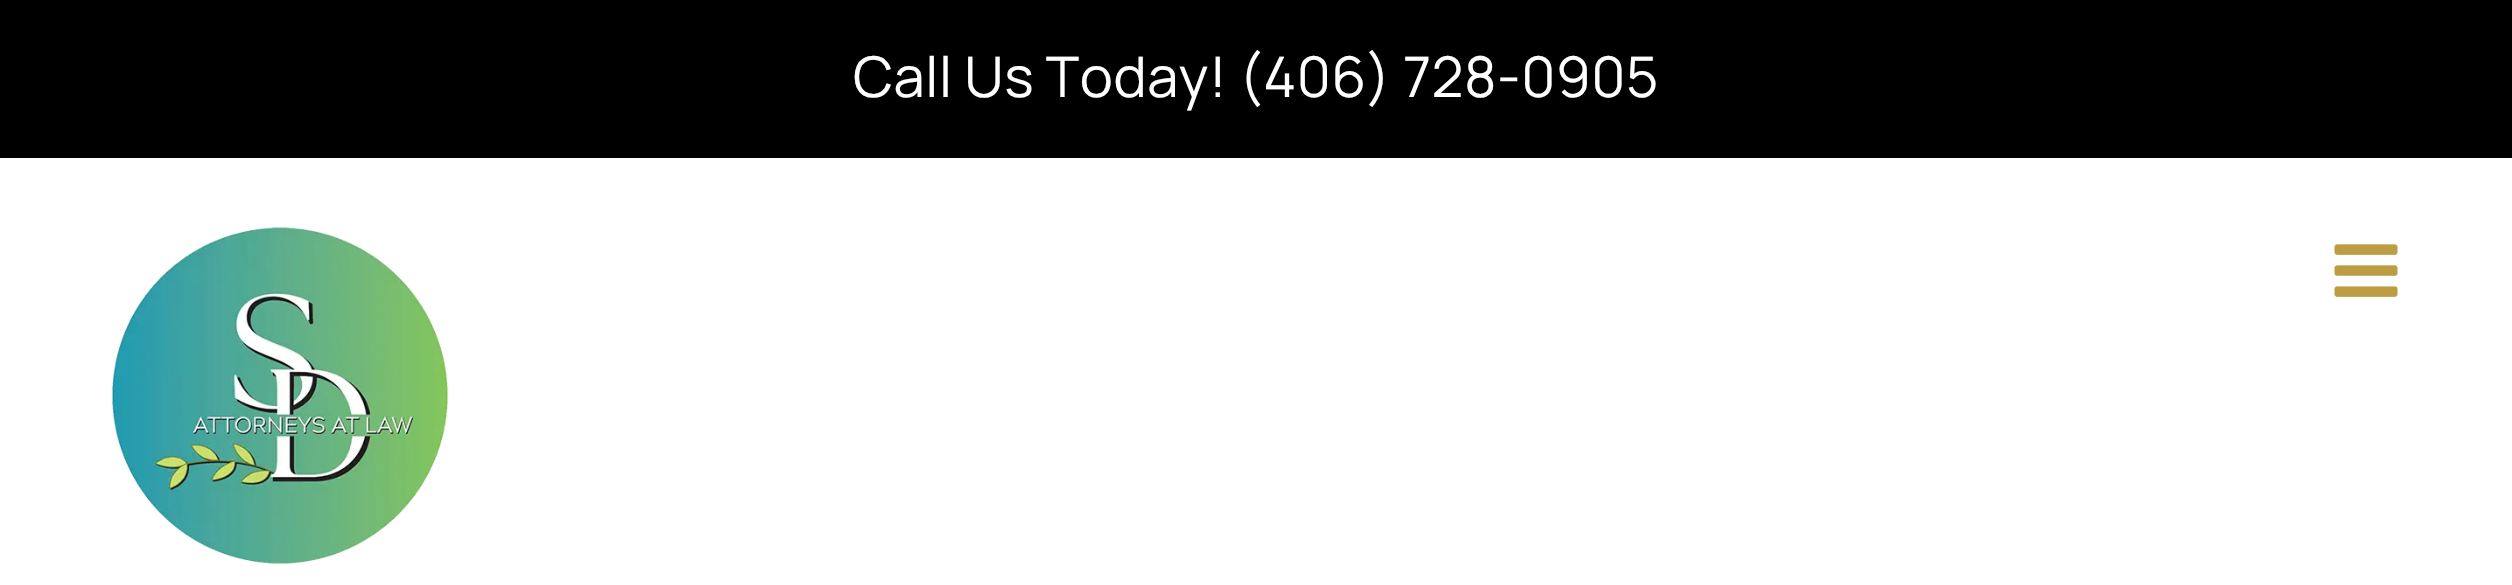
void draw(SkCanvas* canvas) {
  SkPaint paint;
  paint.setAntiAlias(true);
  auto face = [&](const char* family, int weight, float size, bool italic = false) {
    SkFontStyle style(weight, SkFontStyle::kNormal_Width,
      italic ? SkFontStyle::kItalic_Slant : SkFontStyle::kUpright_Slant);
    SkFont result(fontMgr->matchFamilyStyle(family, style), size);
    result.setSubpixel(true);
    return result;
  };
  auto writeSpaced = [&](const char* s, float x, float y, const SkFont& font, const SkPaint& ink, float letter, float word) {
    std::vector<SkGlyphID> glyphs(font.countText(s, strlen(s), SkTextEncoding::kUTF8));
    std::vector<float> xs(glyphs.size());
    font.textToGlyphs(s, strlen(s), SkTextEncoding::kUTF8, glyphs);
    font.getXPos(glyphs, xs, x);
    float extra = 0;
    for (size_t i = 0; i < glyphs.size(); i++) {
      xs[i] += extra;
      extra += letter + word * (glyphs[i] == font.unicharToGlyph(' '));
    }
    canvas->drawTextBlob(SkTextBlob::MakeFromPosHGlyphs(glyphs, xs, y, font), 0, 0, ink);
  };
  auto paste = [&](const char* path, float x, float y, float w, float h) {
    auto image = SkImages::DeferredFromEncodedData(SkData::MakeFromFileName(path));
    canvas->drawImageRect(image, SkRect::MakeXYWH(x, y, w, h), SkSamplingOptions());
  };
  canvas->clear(0xffffffff);
  paint.setColor(0xff000000);
  canvas->drawRect(SkRect::MakeXYWH(0, 0, 2512, 158), paint);
  paste("img/1.png", 112, 227, 336, 337);
  paste("img/2.png", 2334, 244, 64, 53);
  auto f0 = face("Manrope", 400, 56);
  paint.setColor(0xffffffff);
  writeSpaced("Call Us Today! (406) 728-0905", 853, 97, f0, paint, 0.55f, 0);
}
